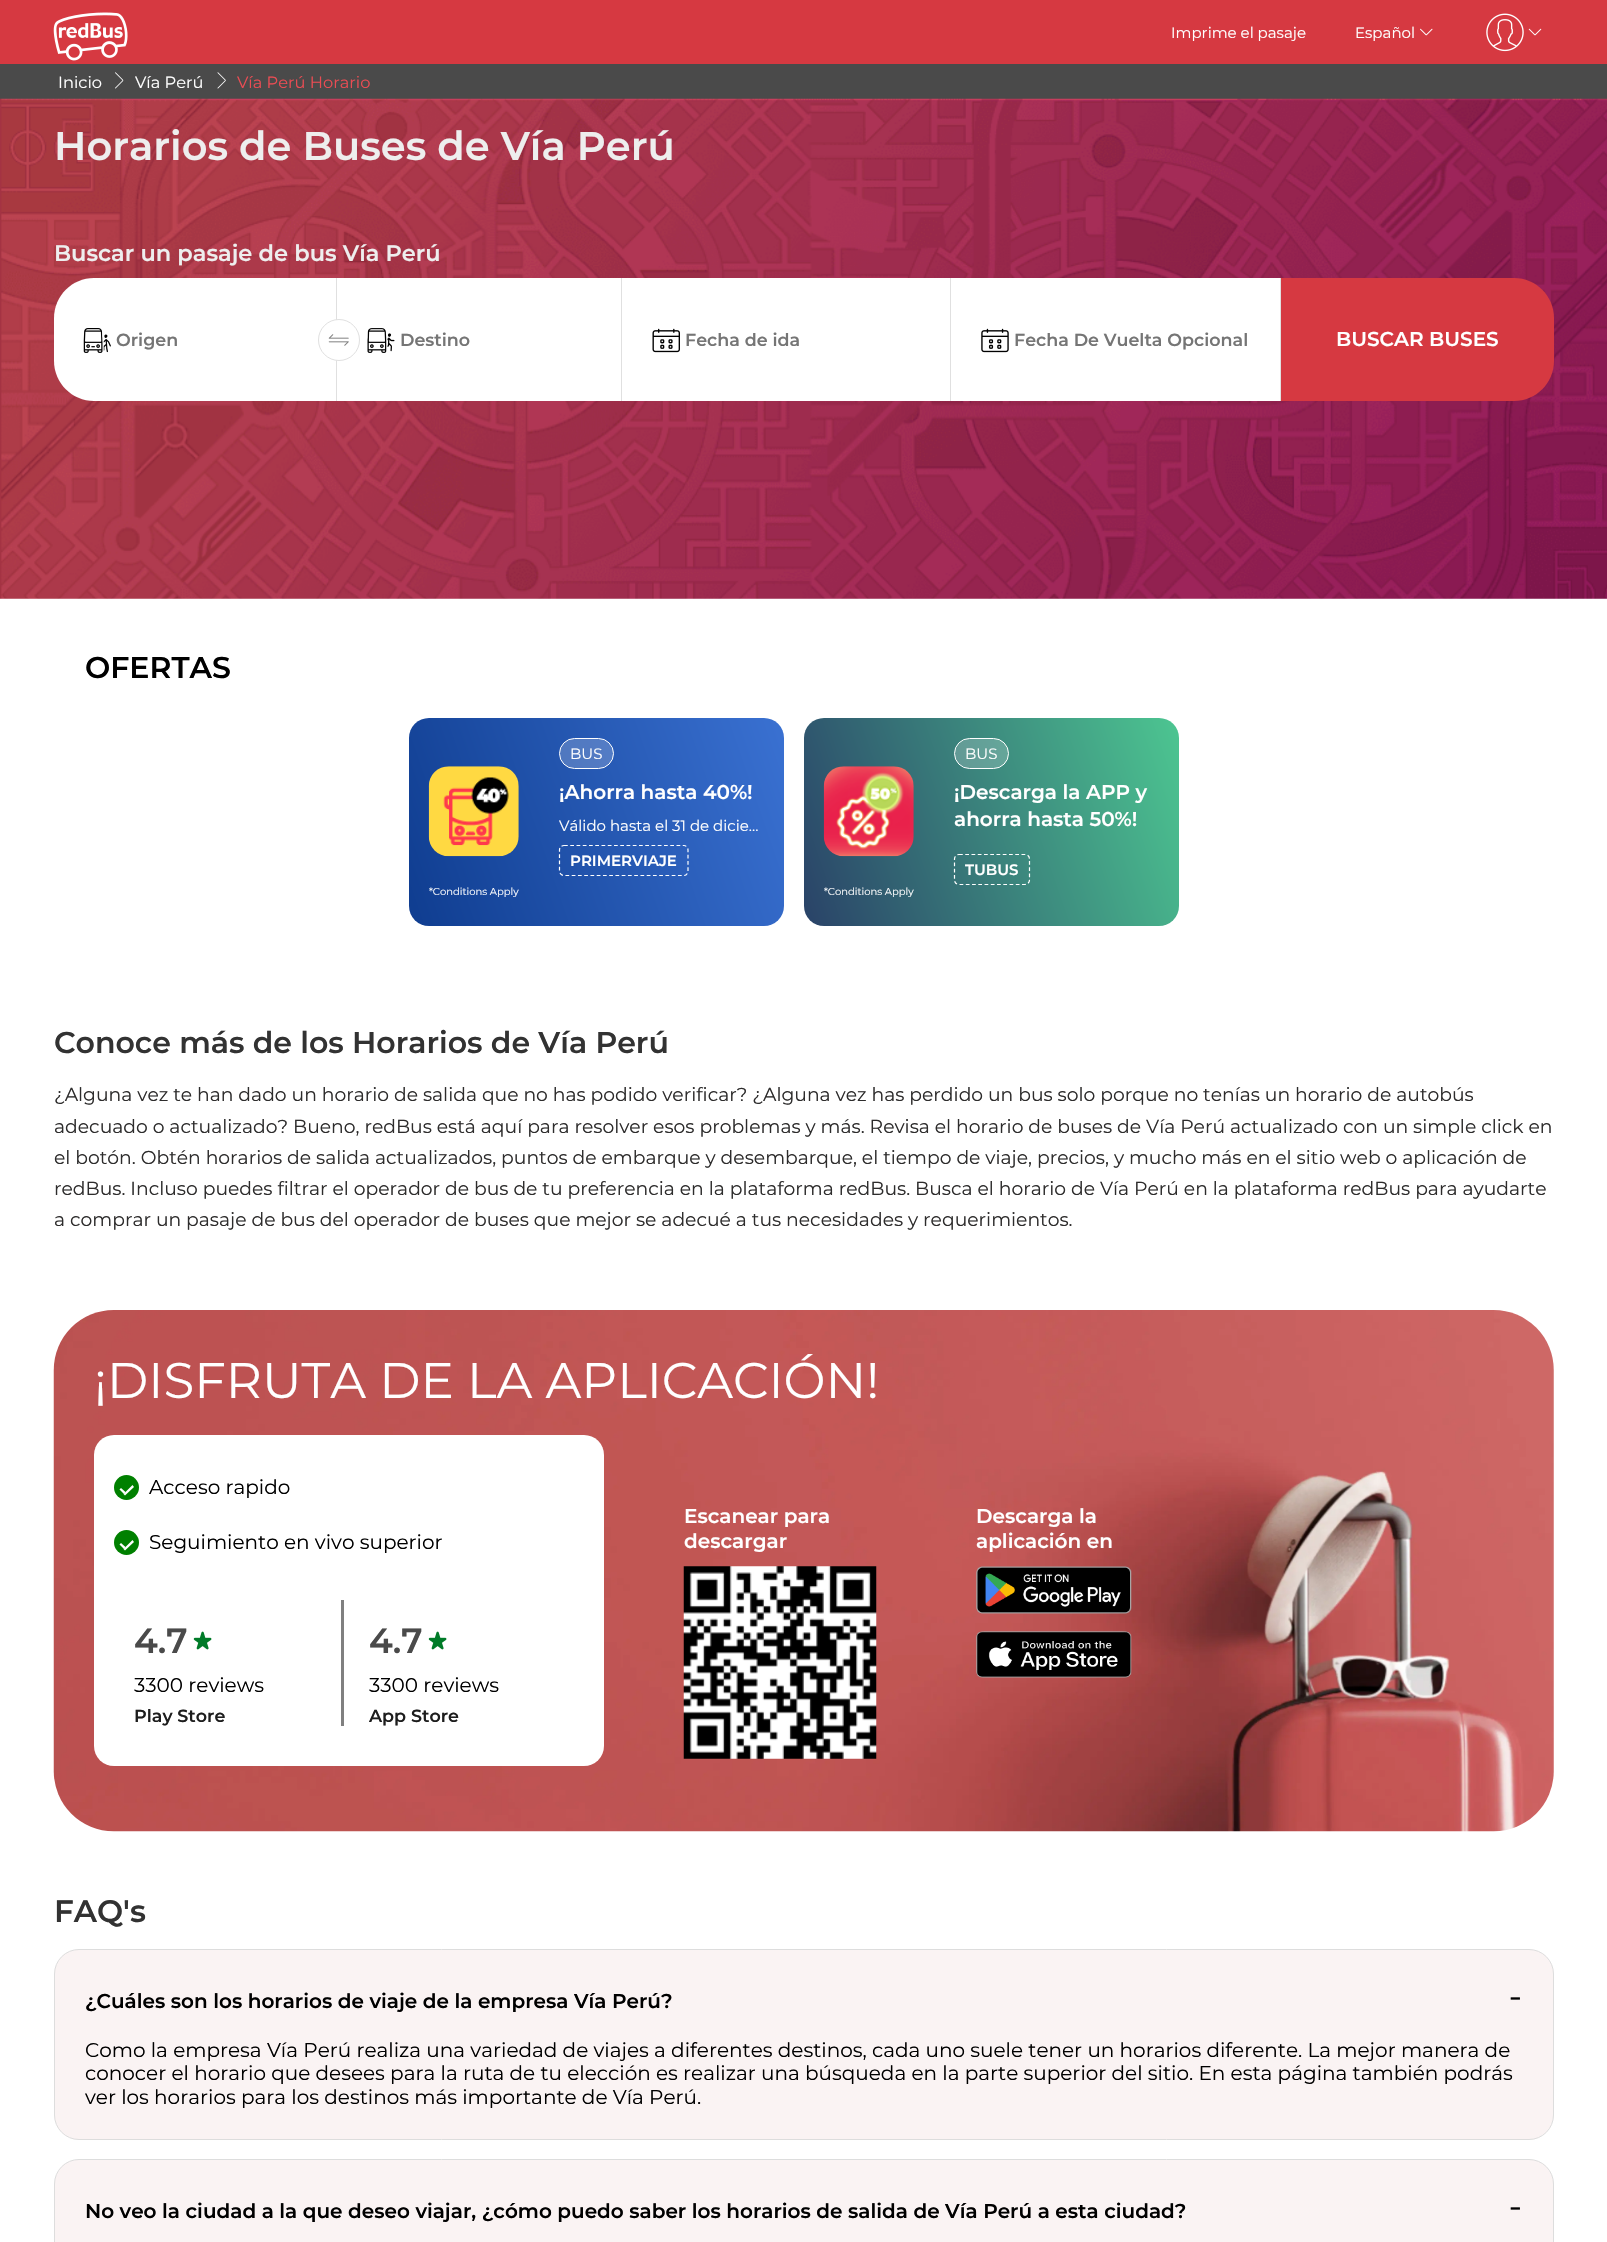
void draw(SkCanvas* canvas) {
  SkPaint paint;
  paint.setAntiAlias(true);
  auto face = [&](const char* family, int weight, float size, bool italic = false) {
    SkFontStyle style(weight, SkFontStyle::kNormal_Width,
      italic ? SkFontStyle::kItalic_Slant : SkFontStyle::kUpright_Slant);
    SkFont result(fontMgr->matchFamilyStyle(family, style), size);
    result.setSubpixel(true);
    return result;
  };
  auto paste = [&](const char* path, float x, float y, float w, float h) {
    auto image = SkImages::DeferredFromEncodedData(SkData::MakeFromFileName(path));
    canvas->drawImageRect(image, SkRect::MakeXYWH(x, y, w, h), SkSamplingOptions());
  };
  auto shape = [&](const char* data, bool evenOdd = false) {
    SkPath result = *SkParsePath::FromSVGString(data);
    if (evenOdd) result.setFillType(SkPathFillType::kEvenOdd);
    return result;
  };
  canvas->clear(0xffffffff);
  paint.setColor(0xffd63941);
  canvas->drawRect(SkRect::MakeXYWH(0, 0, 1607, 64), paint);
  paste("img/1.png", 53, 12, 75, 49);
  paste("img/2.png", 1420, 28, 13, 8);
  paste("img/3.png", 1486, 13, 38, 39);
  paste("img/4.png", 1528, 28, 14, 8);
  paint.setColor(0xff4a4a4a);
  canvas->drawRect(SkRect::MakeXYWH(0, 64, 1607, 35), paint);
  paste("img/5.png", 115, 72, 9, 17);
  paste("img/6.png", 217, 72, 9, 17);
  paste("img/7.png", 0, 98, 1607, 501);
  paint.setColor(0xffffffff);
  canvas->drawPath(shape("M94 278H338V401H94C72 401 54 383 54 361V318C54 296 72 278 94 278Z"), paint);
  paint.setColor(0xffe0e0e0);
  canvas->drawRect(SkRect::MakeXYWH(336, 278, 1, 123), paint);
  paste("img/8.png", 83, 328, 28, 25);
  paint.setColor(0xffffffff);
  canvas->drawRect(SkRect::MakeXYWH(338, 278, 612, 123), paint);
  canvas->drawCircle(339, 340, 20.5f, paint);
  paint.setStroke(true);
  paint.setStrokeWidth(1);
  paint.setColor(0xffe0e0e0);
  canvas->drawCircle(339, 340, 20.5f, paint);
  paste("img/9.png", 328, 334, 21, 12);
  paint.setStroke(false);
  canvas->drawRect(SkRect::MakeXYWH(621, 278, 1, 123), paint);
  paste("img/10.png", 367, 328, 28, 25);
  canvas->drawRect(SkRect::MakeXYWH(950, 278, 1, 123), paint);
  paste("img/11.png", 652, 328, 28, 25);
  paint.setColor(0xffffffff);
  canvas->drawRect(SkRect::MakeXYWH(951, 278, 329, 123), paint);
  paint.setColor(0xffe0e0e0);
  canvas->drawRect(SkRect::MakeXYWH(1280, 278, 1, 123), paint);
  paste("img/12.png", 981, 328, 28, 25);
  paint.setColor(0xffd63941);
  canvas->drawPath(shape("M1281 278H1514C1536 278 1554 296 1554 318V361C1554 383 1536 401 1514 401H1281Z"), paint);
  {
    const SkColor colors[] = {0xff0c398b, 0xff3e76d8};
    const float stops[] = {0, 1};
    const SkPoint ends[] = {{369, 900}, {834, 740}};
    paint.setShader(SkGradientShader::MakeLinear(ends, colors, stops, 2, SkTileMode::kClamp));
    paint.setAlpha(255);
  }
  canvas->drawRoundRect(SkRect::MakeXYWH(409, 718, 375, 208), 20, 20, paint);
  paint.setShader(nullptr);
  paint.setColor(0x33ffffff);
  canvas->drawRoundRect(SkRect::MakeXYWH(559.5f, 738.5f, 54, 30), 15, 15, paint);
  paint.setStroke(true);
  paint.setColor(0xffffffff);
  canvas->drawRoundRect(SkRect::MakeXYWH(559.5f, 738.5f, 54, 30), 15, 15, paint);
  paint.setStrokeWidth(1.2f);
  paint.setPathEffect(SkDashPathEffect::Make({{3.75f, 2.5f}}, 0));
  canvas->drawPath(shape("M564 845.5H684C686 845.5 688 847.5 688 850V871C688 873.5 686 875.5 684 875.5H564C561.5 875.5 559.5 873.5 559.5 871V850C559.5 847.5 561.5 845.5 564 845.5Z"), paint);
  paint.setPathEffect(nullptr);
  paste("img/13.png", 428, 766, 91, 91);
  paint.setStroke(false);
  {
    const SkColor colors[] = {0xff273965, 0xff50d295};
    const float stops[] = {0, 1};
    const SkPoint ends[] = {{764, 900}, {1229, 740}};
    paint.setShader(SkGradientShader::MakeLinear(ends, colors, stops, 2, SkTileMode::kClamp));
    paint.setAlpha(255);
  }
  canvas->drawRoundRect(SkRect::MakeXYWH(804, 718, 375, 208), 20, 20, paint);
  paint.setShader(nullptr);
  paint.setColor(0x33ffffff);
  canvas->drawRoundRect(SkRect::MakeXYWH(954.5f, 738.5f, 54, 30), 15, 15, paint);
  paint.setStroke(true);
  paint.setStrokeWidth(1);
  paint.setColor(0xffffffff);
  canvas->drawRoundRect(SkRect::MakeXYWH(954.5f, 738.5f, 54, 30), 15, 15, paint);
  paint.setStrokeWidth(1.2f);
  paint.setPathEffect(SkDashPathEffect::Make({{3.75f, 2.5f}}, 0));
  canvas->drawPath(shape("M959 854.5H1025C1027.5 854.5 1029.5 856.5 1029.5 859V880C1029.5 882.5 1027.5 884.5 1025 884.5H959C956.5 884.5 954.5 882.5 954.5 880V859C954.5 856.5 956.5 854.5 959 854.5Z"), paint);
  paint.setPathEffect(nullptr);
  paste("img/14.png", 823, 766, 91, 91);
  paste("img/15.png", 53, 1310, 1501, 522);
  paint.setStroke(false);
  canvas->drawRoundRect(SkRect::MakeXYWH(94, 1435, 510, 331), 20, 20, paint);
  paint.setColor(0xff008000);
  canvas->drawCircle(126.5f, 1487.5f, 12.5f, paint);
  paint.setColor(0xffffffff);
  canvas->drawPath(shape("M119.5 1489.5L121 1488L125.5 1492L124 1494Z"), paint);
  canvas->drawPath(shape("M132.5 1485L134 1487L125 1495.5L123.5 1494Z"), paint);
  paint.setColor(0xff008000);
  canvas->drawCircle(126.5f, 1542.5f, 12.5f, paint);
  paint.setColor(0xffffffff);
  canvas->drawPath(shape("M119.5 1544.5L121 1543L125.5 1547L124 1549Z"), paint);
  canvas->drawPath(shape("M132.5 1540L134 1542L125 1550.5L123.5 1549Z"), paint);
  paint.setColor(0xff808080);
  canvas->drawRect(SkRect::MakeXYWH(341, 1600, 3, 126), paint);
  paste("img/16.png", 193, 1631, 19, 19);
  paste("img/16.png", 428, 1631, 19, 19);
  paste("img/17.png", 683, 1566, 194, 193);
  paste("img/18.png", 976, 1566, 156, 48);
  paste("img/19.png", 976, 1631, 156, 47);
  paint.setColor(0xfffaf3f3);
  canvas->drawRoundRect(SkRect::MakeXYWH(54.5f, 1949.5f, 1499, 190), 24.5f, 24.5f, paint);
  paint.setStroke(true);
  paint.setStrokeWidth(1);
  paint.setColor(0xffdddddd);
  canvas->drawRoundRect(SkRect::MakeXYWH(54.5f, 1949.5f, 1499, 190), 24.5f, 24.5f, paint);
  paint.setStroke(false);
  paint.setColor(0xfffaf3f3);
  canvas->drawRoundRect(SkRect::MakeXYWH(54.5f, 2159.5f, 1499, 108), 24.5f, 24.5f, paint);
  paint.setStroke(true);
  paint.setColor(0xffdddddd);
  canvas->drawRoundRect(SkRect::MakeXYWH(54.5f, 2159.5f, 1499, 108), 24.5f, 24.5f, paint);
  auto f0 = face("Montserrat", 100, 15);
  paint.setStroke(false);
  paint.setColor(0xffffffff);
  canvas->drawString("Imprime el pasaje", 1171, 38, f0, paint);
  canvas->drawString("Español", 1355, 38, f0, paint);
  auto f1 = face("Montserrat", 100, 16.25f);
  canvas->drawString("Inicio", 58, 88, f1, paint);
  canvas->drawString("Vía Perú", 135, 88, f1, paint);
  paint.setColor(0xffea4c53);
  canvas->drawString("Vía Perú Horario", 237, 88, f1, paint);
  auto f2 = face("Montserrat", 600, 40);
  paint.setColor(0xffeeeeee);
  canvas->drawString("Horarios de Buses de Vía Perú", 54, 160, f2, paint);
  auto f3 = face("Montserrat", 600, 22.5f);
  canvas->drawString("Buscar un pasaje de bus Vía Perú", 54, 261, f3, paint);
  auto f4 = face("Montserrat", 600, 17.5f);
  paint.setColor(0xff757575);
  {
    const struct { const char* s; float x, y; } items[] = {
      {"Origen", 116, 346},
      {"Destino", 400, 346},
      {"Fecha de ida", 685, 346},
      {"Fecha De Vuelta Opcional", 1014, 346},
    };
    for (auto [s, x, y] : items) {
      canvas->drawString(s, x, y, f4, paint);
    }
  }
  auto f5 = face("Montserrat", 600, 20);
  paint.setColor(0xffffffff);
  canvas->drawString("BUSCAR BUSES", 1336, 346, f5, paint);
  auto f6 = face("Montserrat", 600, 30);
  paint.setColor(0xff000000);
  canvas->drawString("OFERTAS", 85, 678, f6, paint);
  paint.setColor(0xffffffff);
  canvas->drawString("BUS", 570, 759, f0, paint);
  canvas->drawString("¡Ahorra hasta 40%!", 559, 799, f5, paint);
  canvas->drawString("Válido hasta el 31 de dicie…", 559, 831, f0, paint);
  auto f7 = face("Montserrat", 600, 15);
  canvas->drawString("PRIMERVIAJE", 570, 866, f7, paint);
  auto f8 = face("Montserrat", 100, 10);
  canvas->drawString("*Conditions Apply", 429, 895, f8, paint);
  canvas->drawString("BUS", 965, 759, f0, paint);
  canvas->drawString("¡Descarga la APP y", 954, 799, f5, paint);
  canvas->drawString("ahorra hasta 50%!", 954, 826, f5, paint);
  canvas->drawString("TUBUS", 965, 875, f7, paint);
  canvas->drawString("*Conditions Apply", 824, 895, f8, paint);
  paint.setColor(0xff323232);
  canvas->drawString("Conoce más de los Horarios de Vía Perú", 54, 1053, f6, paint);
  auto f9 = face("Montserrat", 100, 18.75f);
  paint.setColor(0xff2d2c2c);
  {
    const struct { const char* s; float x, y; } items[] = {
      {"¿Alguna vez te han dado un horario de salida que no has podido verificar? ¿Alguna vez has perdido un bus solo porque no tenías un horario de autobús", 54, 1101},
      {"adecuado o actualizado? Bueno, redBus está aquí para resolver esos problemas y más. Revisa el horario de buses de Vía Perú actualizado con un simple click en", 54, 1133},
      {"el botón. Obtén horarios de salida actualizados, puntos de embarque y desembarque, el tiempo de viaje, precios, y mucho más en el sitio web o aplicación de", 54, 1164},
      {"redBus. Incluso puedes filtrar el operador de bus de tu preferencia en la plataforma redBus. Busca el horario de Vía Perú en la plataforma redBus para ayudarte", 54, 1195},
      {"a comprar un pasaje de bus del operador de buses que mejor se adecué a tus necesidades y requerimientos.", 54, 1226},
    };
    for (auto [s, x, y] : items) {
      canvas->drawString(s, x, y, f9, paint);
    }
  }
  auto f10 = face("Montserrat", 100, 50);
  paint.setColor(0xffffffff);
  canvas->drawString("¡DISFRUTA DE LA APLICACIÓN!", 94, 1398, f10, paint);
  auto f11 = face("Montserrat", 100, 20);
  paint.setColor(0xff000000);
  canvas->drawString("Acceso rapido", 149, 1494, f11, paint);
  canvas->drawString("Seguimiento en vivo superior", 149, 1549, f11, paint);
  auto f12 = face("Montserrat", 600, 35);
  paint.setColor(0xff4a4a4a);
  canvas->drawString("4.7", 134, 1653, f12, paint);
  paint.setColor(0xff000000);
  canvas->drawString("3300 reviews", 134, 1692, f11, paint);
  paint.setColor(0xff1d1d1d);
  canvas->drawString("Play Store", 134, 1722, f4, paint);
  paint.setColor(0xff4a4a4a);
  canvas->drawString("4.7", 369, 1653, f12, paint);
  paint.setColor(0xff000000);
  canvas->drawString("3300 reviews", 369, 1692, f11, paint);
  paint.setColor(0xff1d1d1d);
  canvas->drawString("App Store", 369, 1722, f4, paint);
  paint.setColor(0xffffffff);
  {
    const struct { const char* s; float x, y; } items[] = {
      {"Escanear para", 684, 1523},
      {"descargar", 684, 1548},
      {"Descarga la", 976, 1523},
      {"aplicación en", 976, 1548},
    };
    for (auto [s, x, y] : items) {
      canvas->drawString(s, x, y, f5, paint);
    }
  }
  auto f13 = face("Montserrat", 600, 31);
  paint.setColor(0xff323232);
  canvas->drawString("FAQ's", 54, 1922, f13, paint);
  paint.setColor(0xff000000);
  canvas->drawString("¿Cuáles son los horarios de viaje de la empresa Vía Perú?", 85, 2008, f5, paint);
  auto f14 = face("Montserrat", 100, 35);
  canvas->save();
  canvas->rotate(180, 1522, 1989);
  canvas->drawString("-", 1522, 1989, f14, paint);
  canvas->restore();
  {
    const struct { const char* s; float x, y; } items[] = {
      {"Como la empresa Vía Perú realiza una variedad de viajes a diferentes destinos, cada uno suele tener un horarios diferente. La mejor manera de", 85, 2057},
      {"conocer el horario que desees para la ruta de tu elección es realizar una búsqueda en la parte superior del sitio. En esta página también podrás", 85, 2080},
      {"ver los horarios para los destinos más importante de Vía Perú.", 85, 2104},
    };
    for (auto [s, x, y] : items) {
      canvas->drawString(s, x, y, f11, paint);
    }
  }
  canvas->drawString("No veo la ciudad a la que deseo viajar, ¿cómo puedo saber los horarios de salida de Vía Perú a esta ciudad?", 85, 2218, f5, paint);
  canvas->save();
  canvas->rotate(180, 1522, 2199);
  canvas->drawString("-", 1522, 2199, f14, paint);
  canvas->restore();
}
